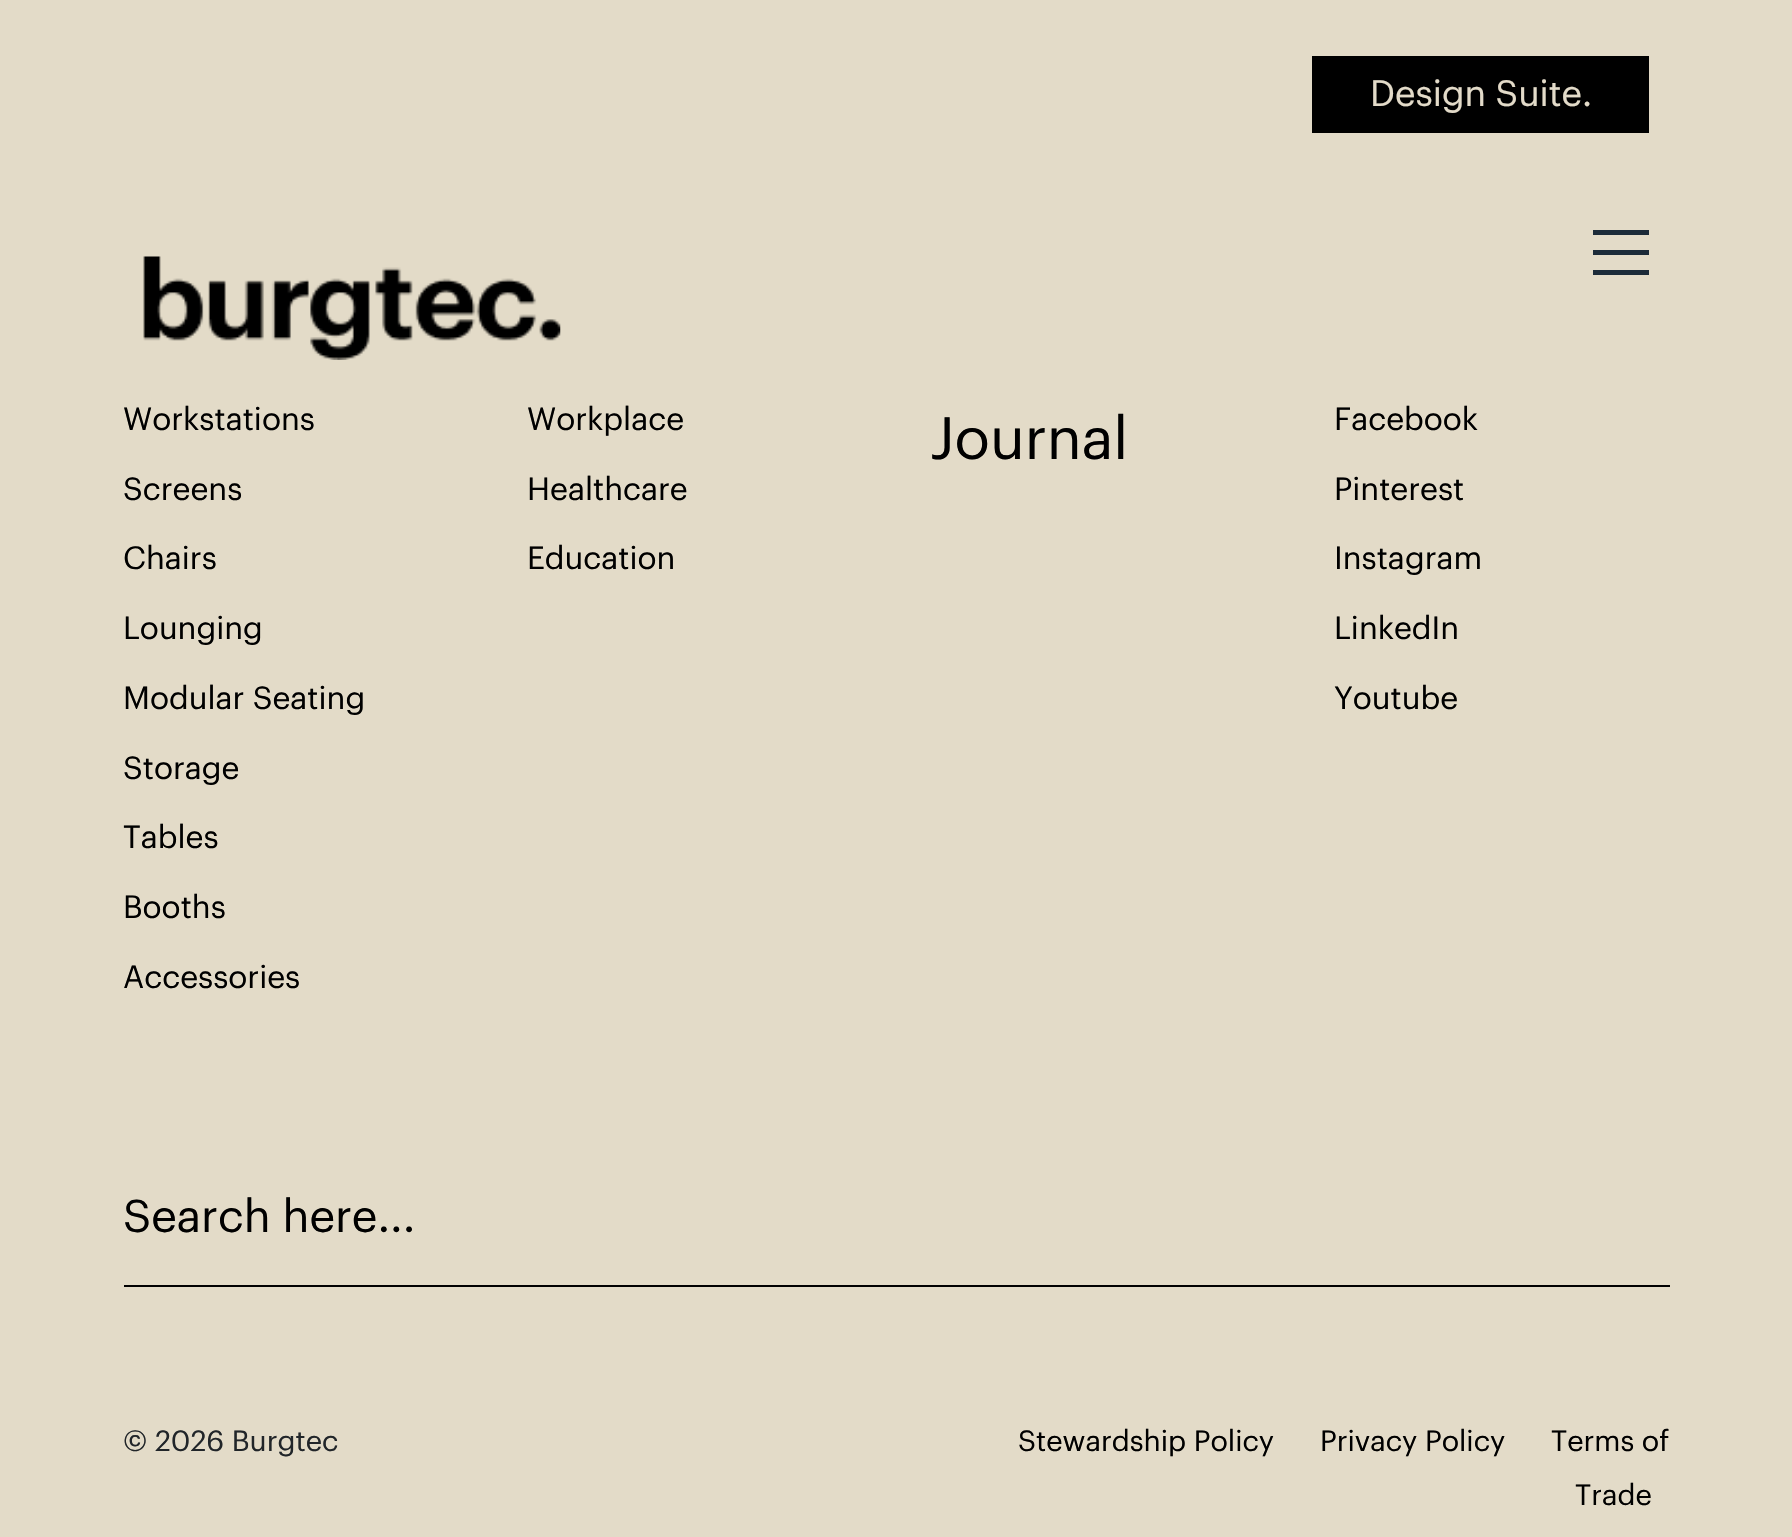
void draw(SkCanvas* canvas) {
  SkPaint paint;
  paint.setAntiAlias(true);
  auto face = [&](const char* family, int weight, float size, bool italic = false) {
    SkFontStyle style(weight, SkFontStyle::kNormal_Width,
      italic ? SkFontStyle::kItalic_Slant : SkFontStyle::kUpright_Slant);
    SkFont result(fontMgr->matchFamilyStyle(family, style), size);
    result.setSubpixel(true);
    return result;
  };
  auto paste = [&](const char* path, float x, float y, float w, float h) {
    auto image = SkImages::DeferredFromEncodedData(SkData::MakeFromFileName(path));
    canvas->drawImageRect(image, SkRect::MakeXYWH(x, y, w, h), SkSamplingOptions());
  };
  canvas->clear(0xffe3dbc8);
  paint.setColor(0xff000000);
  canvas->drawRect(SkRect::MakeXYWH(1312, 56, 337, 77), paint);
  paste("img/1.png", 143, 256, 418, 104);
  {
    const struct { float x, y, w, h; SkColor color; } items[] = {
      {1593, 230, 56, 5, 0xff1c2b39},
      {1593, 250, 56, 5, 0xff1c2b39},
      {1593, 270, 56, 5, 0xff1c2b39},
      {124, 1285, 1546, 2, 0xff000000},
    };
    for (auto [x, y, w, h, color] : items) {
      paint.setColor(color);
      canvas->drawRect(SkRect::MakeXYWH(x, y, w, h), paint);
    }
  }
  auto f0 = face("Graphik", 400, 36);
  paint.setColor(0xffe3dbc9);
  canvas->drawString("Design Suite.", 1370, 106, f0, paint);
  auto f1 = face("Graphik", 400, 31.5f);
  paint.setColor(0xff000000);
  {
    const struct { const char* s; float x, y; } items[] = {
      {"Workstations", 123, 430},
      {"Screens", 123, 500},
      {"Chairs", 123, 569},
      {"Lounging", 123, 639},
      {"Modular Seating", 123, 709},
      {"Storage", 123, 779},
      {"Tables", 123, 848},
      {"Booths", 123, 918},
      {"Accessories", 123, 988},
      {"Workplace", 527, 430},
      {"Healthcare", 527, 500},
      {"Education", 527, 569},
    };
    for (auto [s, x, y] : items) {
      canvas->drawString(s, x, y, f1, paint);
    }
  }
  auto f2 = face("Graphik", 400, 58.5f);
  canvas->drawString("Journal", 930, 459, f2, paint);
  {
    const struct { const char* s; float x, y; } items[] = {
      {"Facebook", 1334, 430},
      {"Pinterest", 1334, 500},
      {"Instagram", 1334, 569},
      {"LinkedIn", 1334, 639},
      {"Youtube", 1334, 709},
    };
    for (auto [s, x, y] : items) {
      canvas->drawString(s, x, y, f1, paint);
    }
  }
  auto f3 = face("Graphik", 400, 45);
  canvas->drawString("Search here...", 123, 1232, f3, paint);
  auto f4 = face("Graphik", 400, 28.75f);
  paint.setColor(0xff212529);
  canvas->drawString("© 2026 Burgtec", 123, 1451, f4, paint);
  paint.setColor(0xff000000);
  {
    const struct { const char* s; float x, y; } items[] = {
      {"Stewardship Policy", 1018, 1451},
      {"Privacy Policy", 1320, 1451},
      {"Terms of", 1551, 1451},
      {"Trade", 1575, 1505},
    };
    for (auto [s, x, y] : items) {
      canvas->drawString(s, x, y, f4, paint);
    }
  }
}
